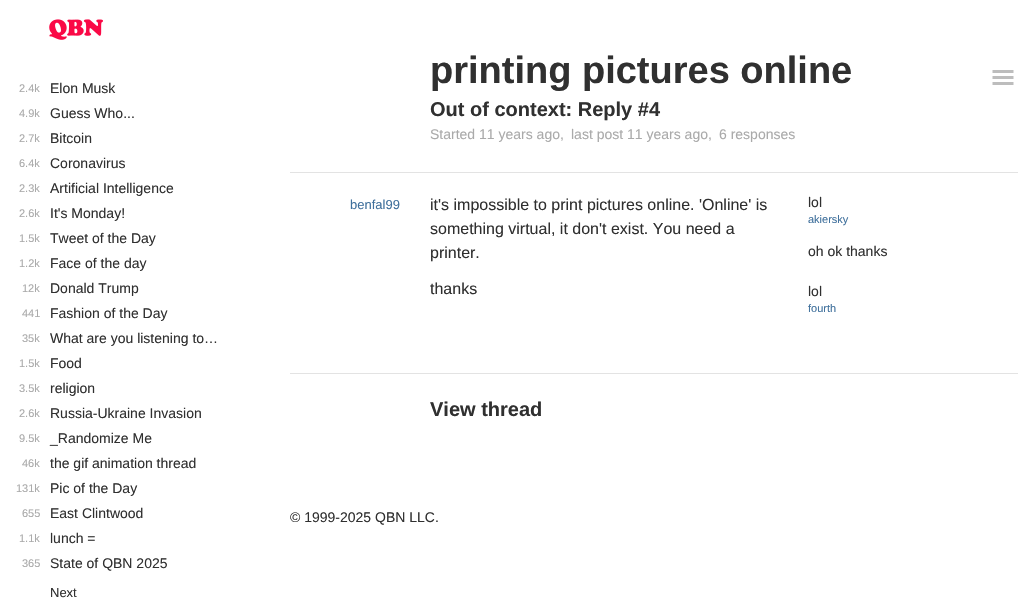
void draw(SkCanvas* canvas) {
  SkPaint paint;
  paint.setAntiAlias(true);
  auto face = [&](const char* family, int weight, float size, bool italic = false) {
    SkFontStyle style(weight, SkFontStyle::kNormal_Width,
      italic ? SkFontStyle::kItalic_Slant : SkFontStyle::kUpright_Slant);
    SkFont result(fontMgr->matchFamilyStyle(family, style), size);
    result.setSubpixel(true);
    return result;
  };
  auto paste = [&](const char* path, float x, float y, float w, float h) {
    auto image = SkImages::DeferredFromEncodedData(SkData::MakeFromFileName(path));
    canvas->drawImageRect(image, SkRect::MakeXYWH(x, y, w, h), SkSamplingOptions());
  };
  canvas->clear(0xffffffff);
  paste("img/1.png", 49, 19, 54, 21);
  paint.setColor(0xffe3e3e3);
  canvas->drawRect(SkRect::MakeXYWH(290, 373, 728, 1), paint);
  canvas->drawRect(SkRect::MakeXYWH(290, 172, 728, 1), paint);
  paste("img/2.png", 992, 70, 22, 15);
  auto f0 = face("Liberation Sans", 400, 11);
  paint.setColor(0xffaaaaaa);
  canvas->drawString("2.4k", 19, 92, f0, paint);
  auto f1 = face("Liberation Sans", 400, 14);
  paint.setColor(0xff303030);
  canvas->drawString("Elon Musk", 50, 93, f1, paint);
  paint.setColor(0xffaaaaaa);
  canvas->drawString("4.9k", 19, 117, f0, paint);
  paint.setColor(0xff303030);
  canvas->drawString("Guess Who...", 50, 118, f1, paint);
  paint.setColor(0xffaaaaaa);
  canvas->drawString("2.7k", 19, 142, f0, paint);
  paint.setColor(0xff303030);
  canvas->drawString("Bitcoin", 50, 143, f1, paint);
  paint.setColor(0xffaaaaaa);
  canvas->drawString("6.4k", 19, 167, f0, paint);
  paint.setColor(0xff303030);
  canvas->drawString("Coronavirus", 50, 168, f1, paint);
  paint.setColor(0xffaaaaaa);
  canvas->drawString("2.3k", 19, 192, f0, paint);
  paint.setColor(0xff303030);
  canvas->drawString("Artificial Intelligence", 50, 193, f1, paint);
  paint.setColor(0xffaaaaaa);
  canvas->drawString("2.6k", 19, 217, f0, paint);
  paint.setColor(0xff303030);
  canvas->drawString("It's Monday!", 50, 218, f1, paint);
  paint.setColor(0xffaaaaaa);
  canvas->drawString("1.5k", 19, 242, f0, paint);
  paint.setColor(0xff303030);
  canvas->drawString("Tweet of the Day", 50, 243, f1, paint);
  paint.setColor(0xffaaaaaa);
  canvas->drawString("1.2k", 19, 267, f0, paint);
  paint.setColor(0xff303030);
  canvas->drawString("Face of the day", 50, 268, f1, paint);
  paint.setColor(0xffaaaaaa);
  canvas->drawString("12k", 22, 292, f0, paint);
  paint.setColor(0xff303030);
  canvas->drawString("Donald Trump", 50, 293, f1, paint);
  paint.setColor(0xffaaaaaa);
  canvas->drawString("441", 22, 317, f0, paint);
  paint.setColor(0xff303030);
  canvas->drawString("Fashion of the Day", 50, 318, f1, paint);
  paint.setColor(0xffaaaaaa);
  canvas->drawString("35k", 22, 342, f0, paint);
  paint.setColor(0xff303030);
  canvas->drawString("What are you listening to…", 50, 343, f1, paint);
  paint.setColor(0xffaaaaaa);
  canvas->drawString("1.5k", 19, 367, f0, paint);
  paint.setColor(0xff303030);
  canvas->drawString("Food", 50, 368, f1, paint);
  paint.setColor(0xffaaaaaa);
  canvas->drawString("3.5k", 19, 392, f0, paint);
  paint.setColor(0xff303030);
  canvas->drawString("religion", 50, 393, f1, paint);
  paint.setColor(0xffaaaaaa);
  canvas->drawString("2.6k", 19, 417, f0, paint);
  paint.setColor(0xff303030);
  canvas->drawString("Russia-Ukraine Invasion", 50, 418, f1, paint);
  paint.setColor(0xffaaaaaa);
  canvas->drawString("9.5k", 19, 442, f0, paint);
  paint.setColor(0xff303030);
  canvas->drawString("_Randomize Me", 50, 443, f1, paint);
  paint.setColor(0xffaaaaaa);
  canvas->drawString("46k", 22, 467, f0, paint);
  paint.setColor(0xff303030);
  canvas->drawString("the gif animation thread", 50, 468, f1, paint);
  paint.setColor(0xffaaaaaa);
  canvas->drawString("131k", 16, 492, f0, paint);
  paint.setColor(0xff303030);
  canvas->drawString("Pic of the Day", 50, 493, f1, paint);
  paint.setColor(0xffaaaaaa);
  canvas->drawString("655", 22, 517, f0, paint);
  paint.setColor(0xff303030);
  canvas->drawString("East Clintwood", 50, 518, f1, paint);
  paint.setColor(0xffaaaaaa);
  canvas->drawString("1.1k", 19, 542, f0, paint);
  paint.setColor(0xff303030);
  canvas->drawString("lunch =", 50, 543, f1, paint);
  paint.setColor(0xffaaaaaa);
  canvas->drawString("365", 22, 567, f0, paint);
  paint.setColor(0xff303030);
  canvas->drawString("State of QBN 2025", 50, 568, f1, paint);
  auto f2 = face("Liberation Sans", 400, 13);
  canvas->drawString("Next", 50, 597, f2, paint);
  auto f3 = face("Liberation Sans", 700, 38);
  canvas->drawString("printing pictures online", 430, 83, f3, paint);
  auto f4 = face("Liberation Sans", 700, 20);
  canvas->drawString("Out of context: Reply #4", 430, 116, f4, paint);
  paint.setColor(0xffaaaaaa);
  {
    const struct { const char* s; float x, y; } items[] = {
      {"Started 11 years ago,", 430, 139},
      {"last post 11 years ago,", 571, 139},
      {"6 responses", 719, 139},
    };
    for (auto [s, x, y] : items) {
      canvas->drawString(s, x, y, f1, paint);
    }
  }
  paint.setColor(0xff3f709c);
  canvas->drawString("benfal99", 350, 209, f2, paint);
  auto f5 = face("Liberation Sans", 400, 16);
  paint.setColor(0xff303030);
  {
    const struct { const char* s; float x, y; } items[] = {
      {"it's impossible to print pictures online. 'Online' is", 430, 210},
      {"something virtual, it don't exist. You need a", 430, 234},
      {"printer.", 430, 258},
      {"thanks", 430, 294},
    };
    for (auto [s, x, y] : items) {
      canvas->drawString(s, x, y, f5, paint);
    }
  }
  canvas->drawString("lol", 808, 207, f1, paint);
  paint.setColor(0xff3f709c);
  canvas->drawString("akiersky", 808, 223, f0, paint);
  paint.setColor(0xff303030);
  canvas->drawString("oh ok thanks", 808, 256, f1, paint);
  canvas->drawString("lol", 808, 296, f1, paint);
  paint.setColor(0xff3f709c);
  canvas->drawString("fourth", 808, 312, f0, paint);
  paint.setColor(0xff303030);
  canvas->drawString("View thread", 430, 416, f4, paint);
  canvas->drawString("© 1999-2025 QBN LLC.", 290, 522, f1, paint);
}
